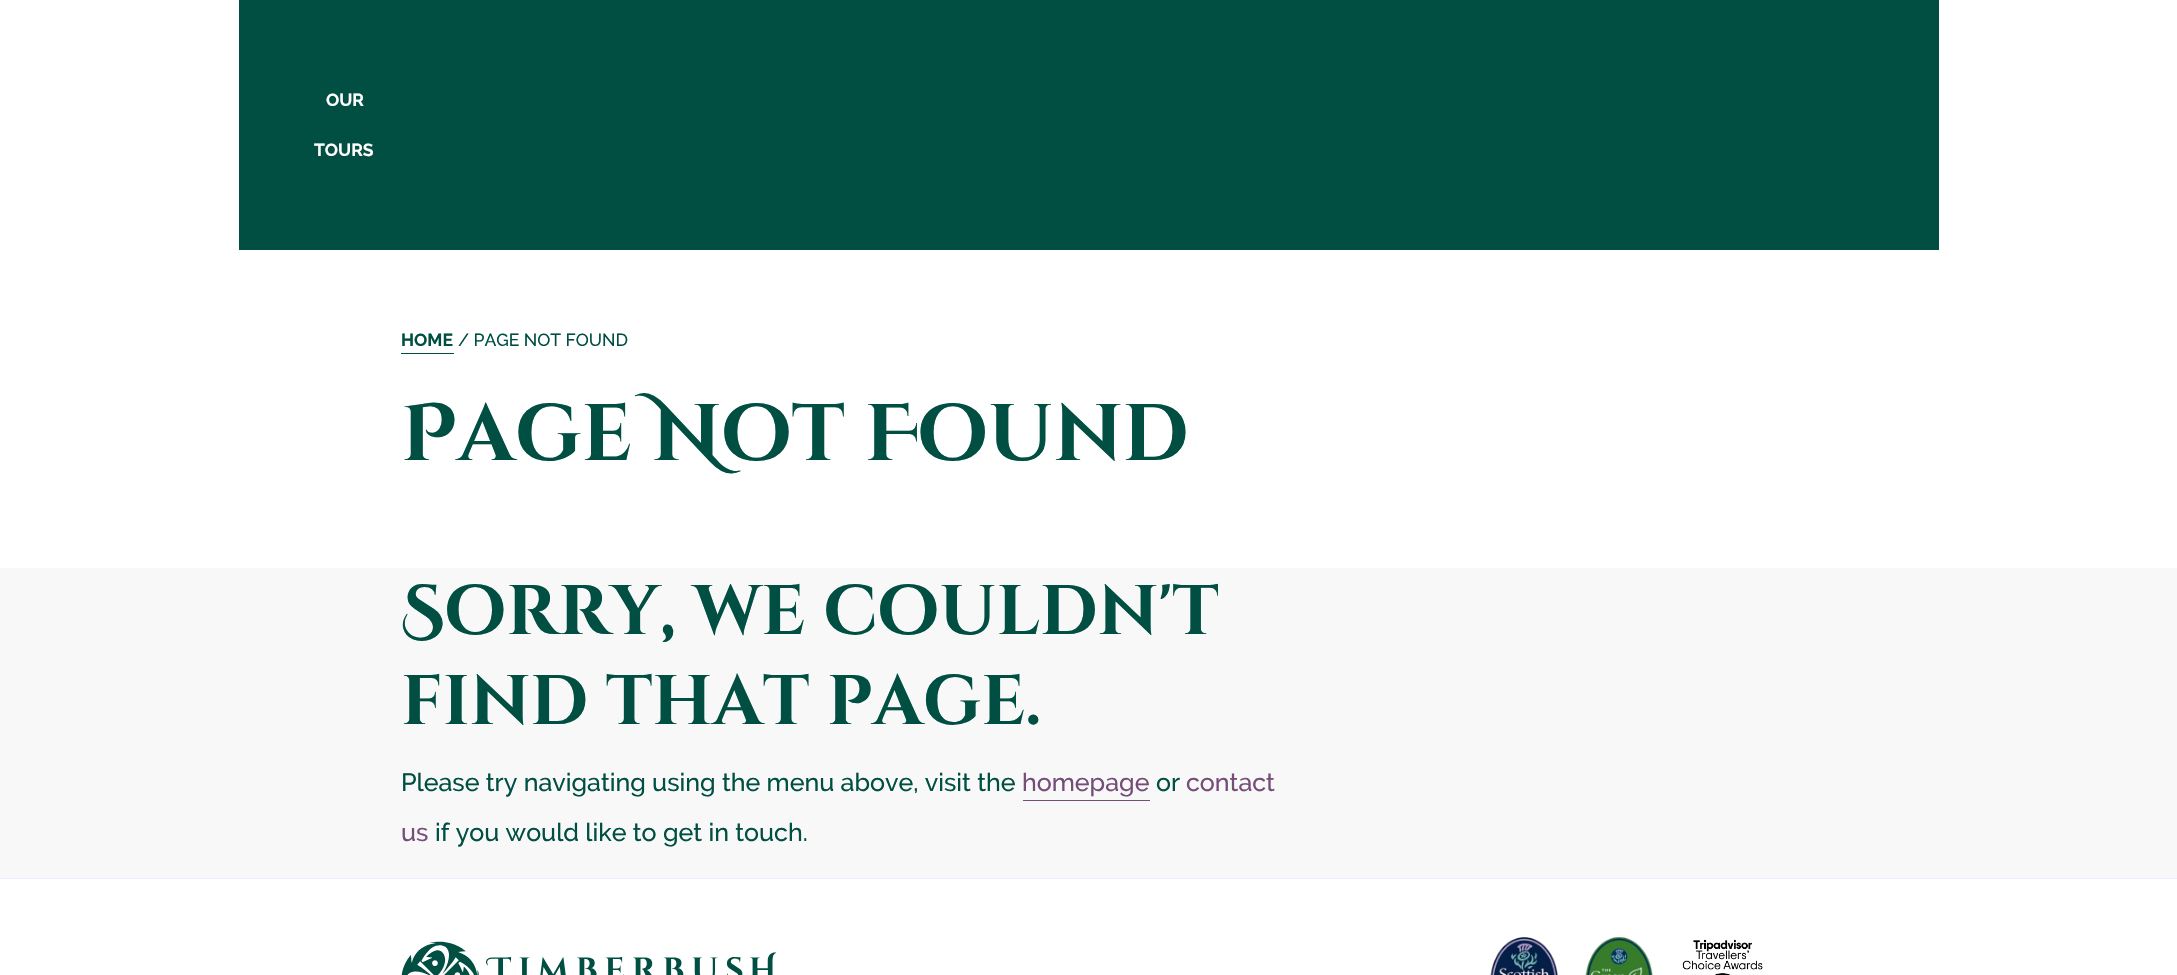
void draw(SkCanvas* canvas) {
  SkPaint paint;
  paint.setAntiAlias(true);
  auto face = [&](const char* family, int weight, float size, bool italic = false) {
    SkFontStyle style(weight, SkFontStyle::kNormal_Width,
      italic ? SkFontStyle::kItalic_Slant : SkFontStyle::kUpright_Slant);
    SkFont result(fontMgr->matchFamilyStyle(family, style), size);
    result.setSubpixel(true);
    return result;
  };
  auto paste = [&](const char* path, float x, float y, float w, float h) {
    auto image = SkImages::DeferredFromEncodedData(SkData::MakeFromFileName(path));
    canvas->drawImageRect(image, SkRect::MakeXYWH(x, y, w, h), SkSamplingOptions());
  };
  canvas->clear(0xffffffff);
  {
    const struct { float x, y, w, h; SkColor color; } items[] = {
      {239, 0, 1700, 250, 0xff004f42},
      {401, 353, 53, 1, 0xff004f42},
      {0, 568, 2177, 310, 0xfff7f8f7},
      {1023, 800, 127, 1, 0xff754d78},
      {0, 878, 2177, 1, 0xffe6eeff},
    };
    for (auto [x, y, w, h, color] : items) {
      paint.setColor(color);
      canvas->drawRect(SkRect::MakeXYWH(x, y, w, h), paint);
    }
  }
  paste("img/1.png", 401, 941, 375, 34);
  paste("img/2.png", 1490, 937, 68, 38);
  paste("img/3.png", 1585, 937, 68, 38);
  paste("img/4.png", 1682, 939, 81, 36);
  auto f0 = face("Raleway", 700, 17.5f);
  paint.setColor(0xffffffff);
  canvas->drawString("OUR", 326, 106, f0, paint);
  canvas->drawString("TOURS", 314, 156, f0, paint);
  paint.setColor(0xff004f42);
  canvas->drawString("HOME", 401, 346, f0, paint);
  auto f1 = face("Raleway", 500, 17.5f);
  canvas->drawString("/ PAGE NOT FOUND", 458, 346, f1, paint);
  auto f2 = face("Cinzel Decorative", 700, 80);
  canvas->drawString("Page Not Found", 401, 460, f2, paint);
  auto f3 = face("Cinzel Decorative", 700, 70);
  canvas->drawString("Sorry, we couldn't", 401, 634, f3, paint);
  canvas->drawString("find that page.", 401, 724, f3, paint);
  auto f4 = face("Raleway", 500, 25);
  canvas->drawString("Please try navigating using the menu above, visit the", 401, 791, f4, paint);
  paint.setColor(0xff754d78);
  canvas->drawString("homepage", 1022, 791, f4, paint);
  paint.setColor(0xff004f42);
  canvas->drawString("or", 1156, 791, f4, paint);
  paint.setColor(0xff754d78);
  canvas->drawString("contact", 1186, 791, f4, paint);
  canvas->drawString("us", 401, 841, f4, paint);
  paint.setColor(0xff004f42);
  canvas->drawString("if you would like to get in touch.", 435, 841, f4, paint);
}
